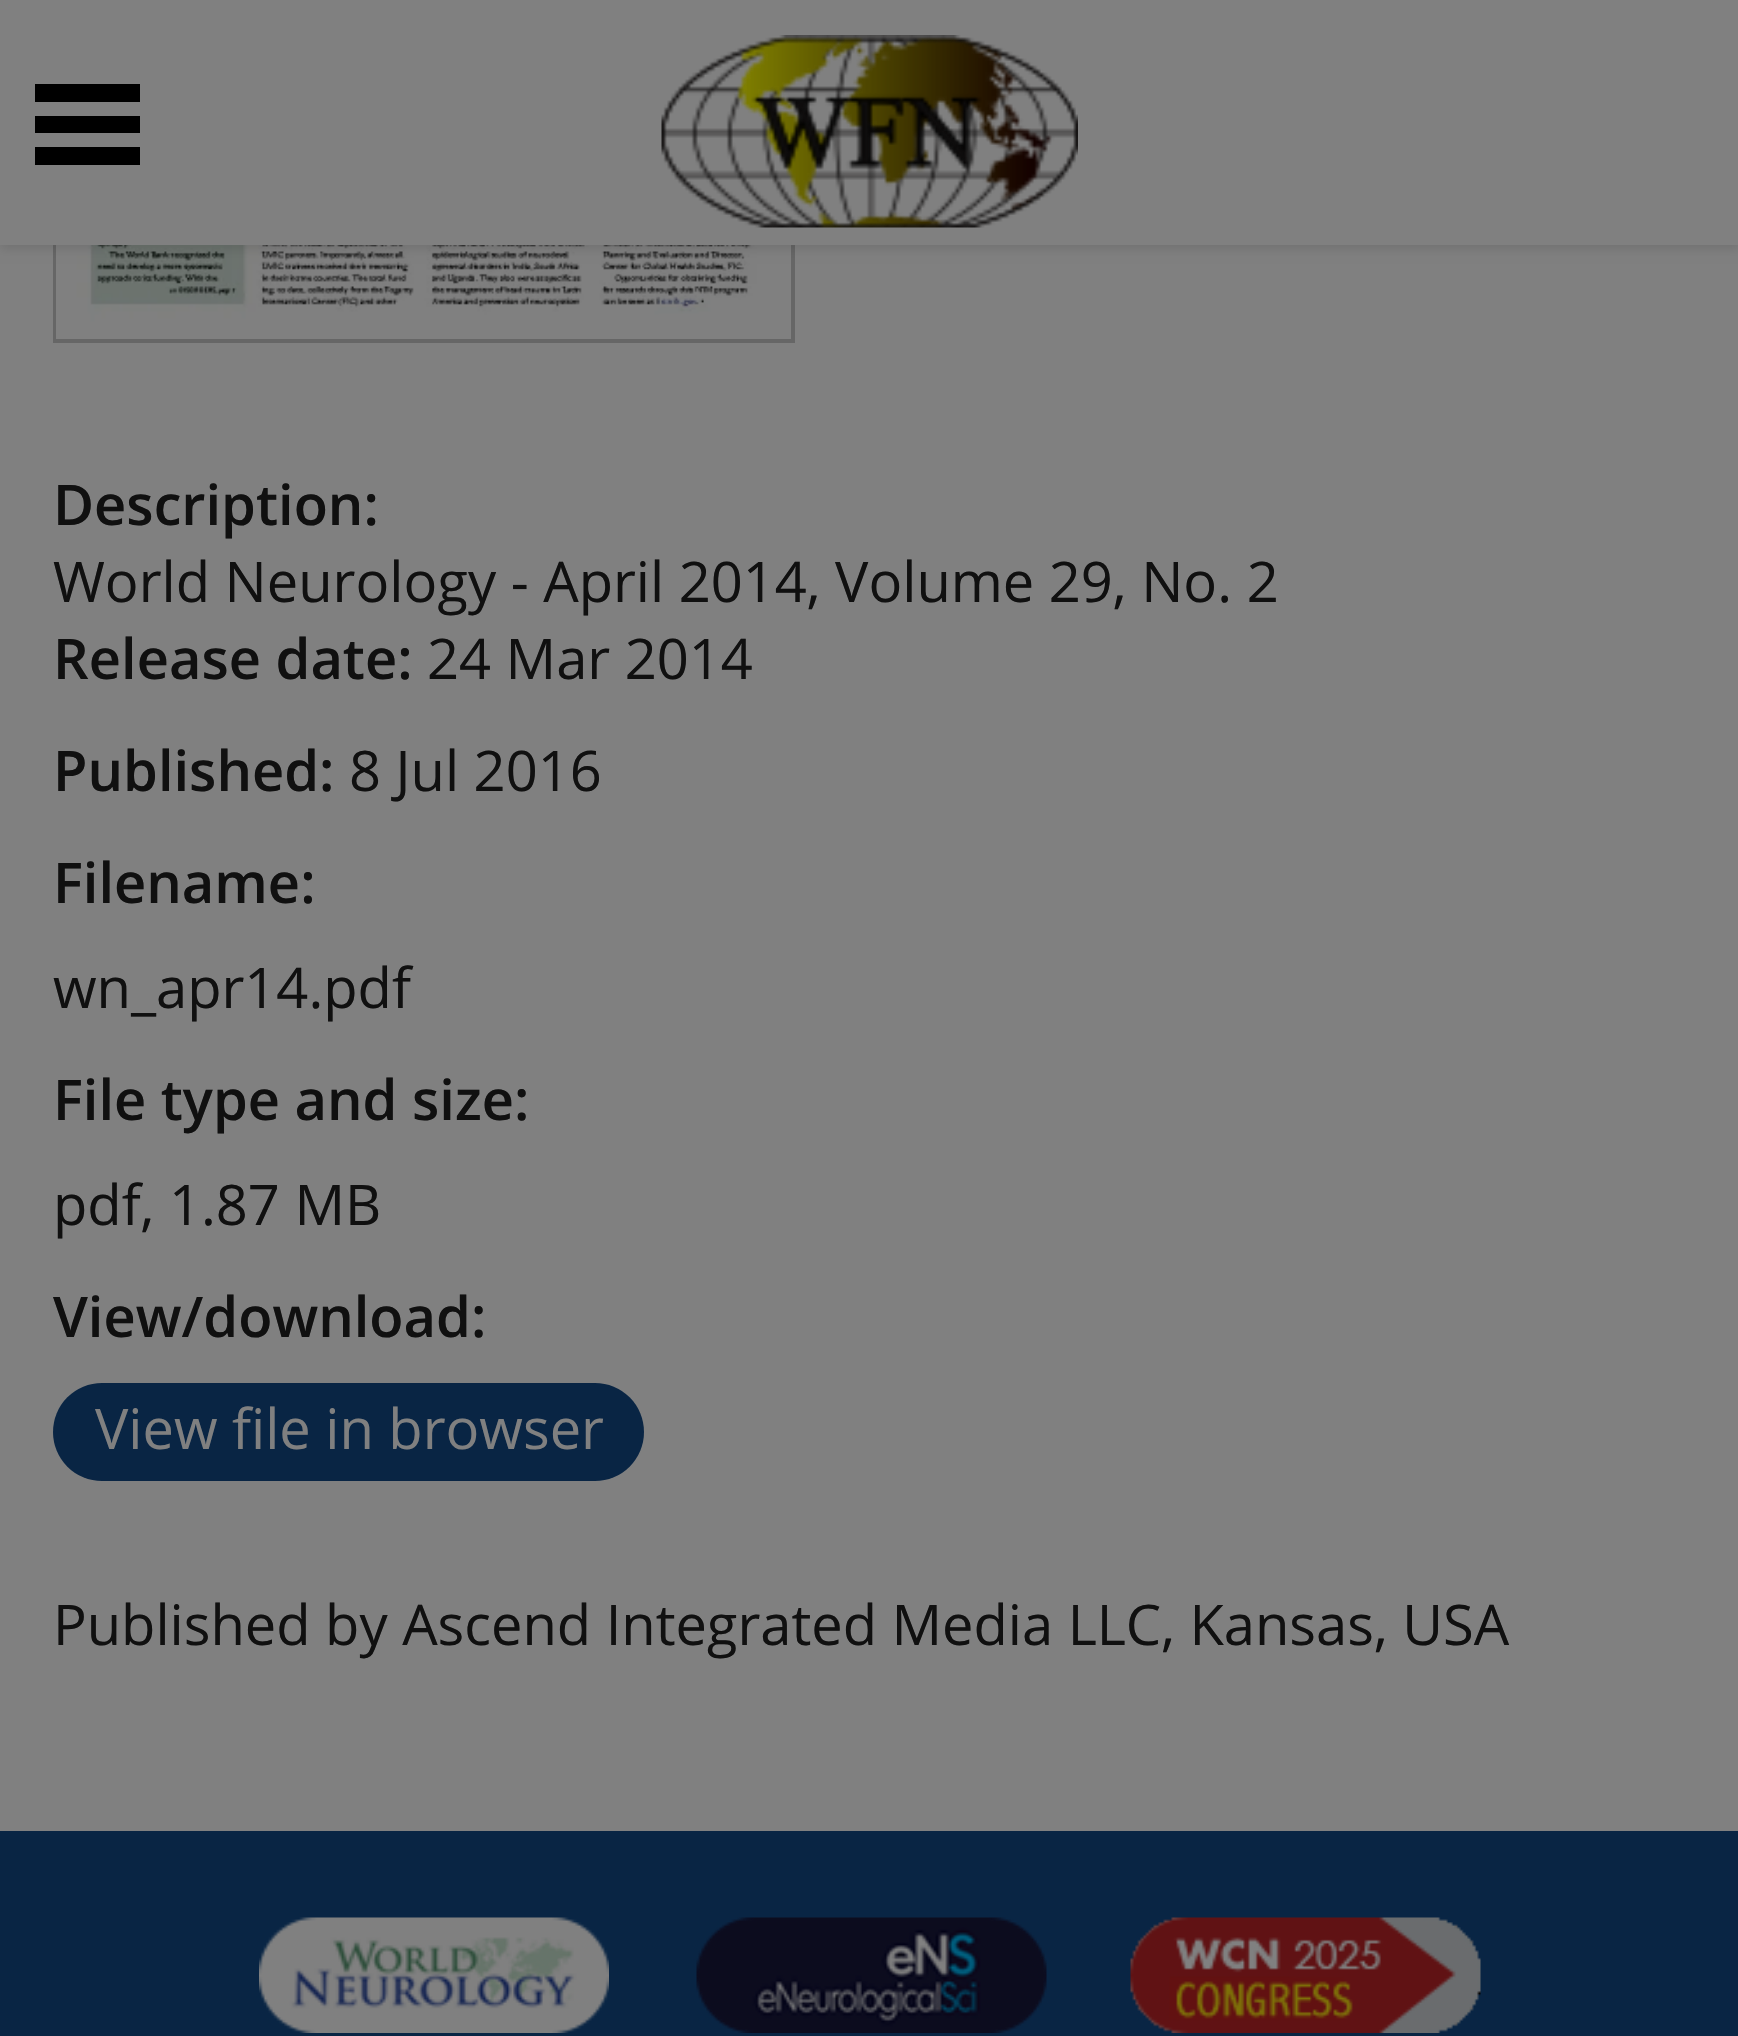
void draw(SkCanvas* canvas) {
  SkPaint paint;
  paint.setAntiAlias(true);
  auto face = [&](const char* family, int weight, float size, bool italic = false) {
    SkFontStyle style(weight, SkFontStyle::kNormal_Width,
      italic ? SkFontStyle::kItalic_Slant : SkFontStyle::kUpright_Slant);
    SkFont result(fontMgr->matchFamilyStyle(family, style), size);
    result.setSubpixel(true);
    return result;
  };
  auto paste = [&](const char* path, float x, float y, float w, float h) {
    auto image = SkImages::DeferredFromEncodedData(SkData::MakeFromFileName(path));
    canvas->drawImageRect(image, SkRect::MakeXYWH(x, y, w, h), SkSamplingOptions());
  };
  canvas->clear(0xff808080);
  paint.setStroke(true);
  paint.setStrokeWidth(4);
  paint.setColor(0xff666666);
  canvas->drawRect(SkRect::MakeXYWH(55, -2, 738, 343), paint);
  paste("img/2.png", 56, 245, 701, 94);
  paint.setStroke(false);
  paint.setColor(0x1c000000);
  paint.setMaskFilter(SkMaskFilter::MakeBlur(kNormal_SkBlurStyle, 5));
  canvas->drawRect(SkRect::MakeXYWH(0, 4, 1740, 245), paint);
  paint.setMaskFilter(nullptr);
  {
    const struct { float x, y, w, h; SkColor color; } items[] = {
      {0, 0, 1738, 245, 0xff808080},
      {35, 84, 105, 18, 0xff000000},
      {35, 116, 105, 17, 0xff000000},
      {35, 147, 105, 18, 0xff000000},
    };
    for (auto [x, y, w, h, color] : items) {
      paint.setColor(color);
      canvas->drawRect(SkRect::MakeXYWH(x, y, w, h), paint);
    }
  }
  paste("img/1.png", 661, 35, 417, 193);
  paint.setColor(0xff092544);
  canvas->drawRoundRect(SkRect::MakeXYWH(53, 1383, 591, 98), 49, 49, paint);
  canvas->drawRect(SkRect::MakeXYWH(0, 1831, 1738, 205), paint);
  paste("img/3.png", 259, 1917, 350, 116);
  paste("img/4.png", 696, 1917, 351, 116);
  paste("img/5.png", 1130, 1917, 351, 116);
  auto f0 = face("Open Sans", 600, 56);
  paint.setColor(0xff101010);
  canvas->drawString("Description:", 53, 525, f0, paint);
  auto f1 = face("Open Sans", 400, 56);
  canvas->drawString("World Neurology - April 2014, Volume 29, No. 2", 53, 602, f1, paint);
  canvas->drawString("Release date:", 53, 679, f0, paint);
  canvas->drawString("24 Mar 2014", 427, 679, f1, paint);
  canvas->drawString("Published:", 53, 791, f0, paint);
  canvas->drawString("8 Jul 2016", 349, 791, f1, paint);
  canvas->drawString("Filename:", 53, 903, f0, paint);
  canvas->drawString("wn_apr14.pdf", 53, 1008, f1, paint);
  canvas->drawString("File type and size:", 53, 1120, f0, paint);
  canvas->drawString("pdf, 1.87 MB", 53, 1225, f1, paint);
  canvas->drawString("View/download:", 53, 1337, f0, paint);
  paint.setColor(0xff808080);
  canvas->drawString("View file in browser", 95, 1449, f1, paint);
  paint.setColor(0xff101010);
  canvas->drawString("Published by Ascend Integrated Media LLC, Kansas, USA", 53, 1645, f1, paint);
}
